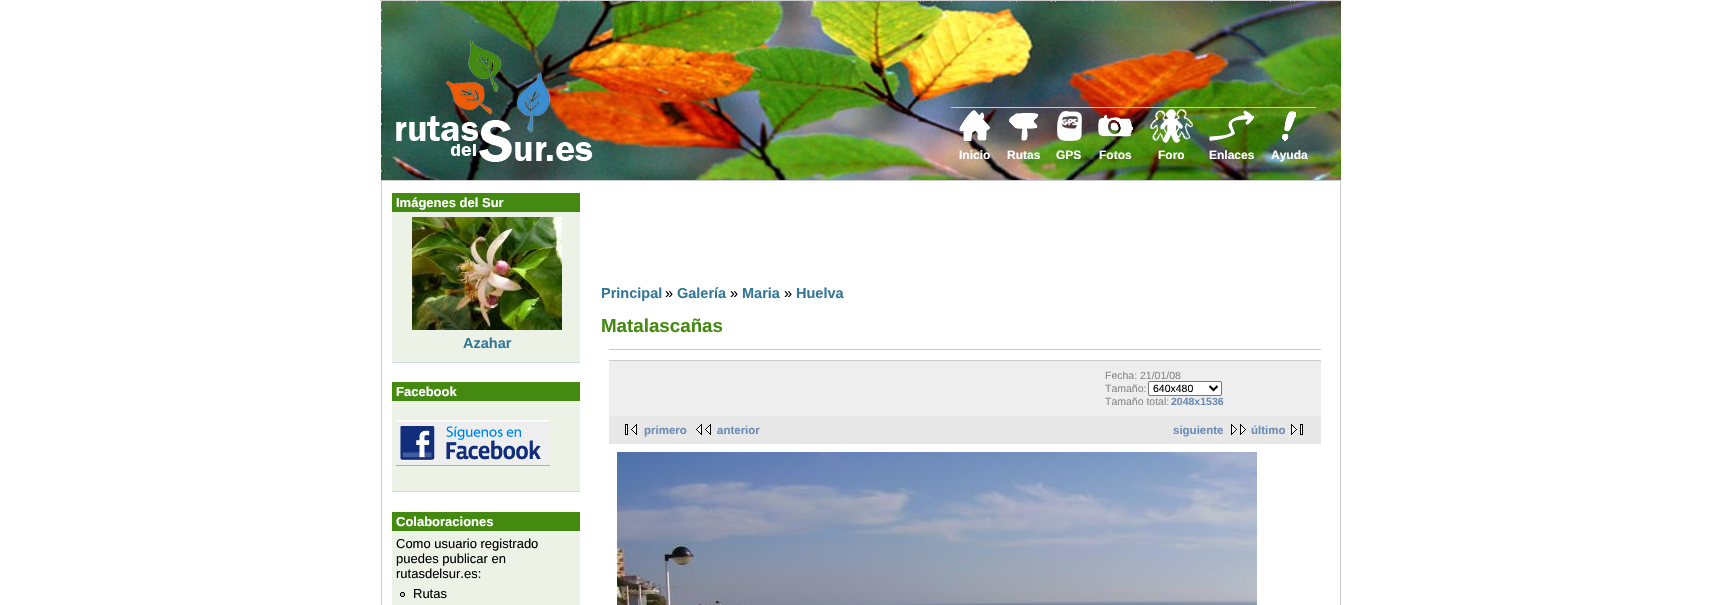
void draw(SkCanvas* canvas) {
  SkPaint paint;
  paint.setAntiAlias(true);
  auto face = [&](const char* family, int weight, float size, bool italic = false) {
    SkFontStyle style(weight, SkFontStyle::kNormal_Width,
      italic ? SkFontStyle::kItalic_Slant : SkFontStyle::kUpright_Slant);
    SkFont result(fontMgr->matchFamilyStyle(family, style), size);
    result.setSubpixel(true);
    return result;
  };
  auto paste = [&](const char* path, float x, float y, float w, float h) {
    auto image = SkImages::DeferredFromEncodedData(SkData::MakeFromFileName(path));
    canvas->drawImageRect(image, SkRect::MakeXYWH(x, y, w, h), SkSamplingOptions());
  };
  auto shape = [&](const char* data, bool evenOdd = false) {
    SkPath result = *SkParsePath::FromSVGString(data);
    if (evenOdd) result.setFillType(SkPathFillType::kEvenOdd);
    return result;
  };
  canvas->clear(0xffffffff);
  paste("img/1.png", 381, 1, 960, 179);
  paint.setColor(0xffcccccc);
  canvas->drawRect(SkRect::MakeXYWH(380, 0, 961, 1), paint);
  paste("img/2.png", 396, 40, 197, 122);
  canvas->drawRect(SkRect::MakeXYWH(951, 107, 365, 1), paint);
  paste("img/3.png", 959, 110, 31, 32);
  paste("img/4.png", 1009, 113, 30, 28);
  paste("img/5.png", 1057, 111, 25, 30);
  paste("img/6.png", 1098, 114, 35, 23);
  paste("img/7.png", 1150, 109, 43, 34);
  paste("img/8.png", 1209, 110, 46, 32);
  paste("img/9.png", 1281, 111, 15, 30);
  {
    const struct { float x, y, w, h; SkColor color; } items[] = {
      {381, 180, 960, 1, 0xffcccccc},
      {1340, 180, 1, 425, 0xffcccccc},
      {381, 180, 1, 425, 0xffcccccc},
      {392, 212, 188, 150, 0xffedf2e7},
      {392, 362, 188, 1, 0xffccdddd},
      {392, 193, 188, 19, 0xff448a10},
    };
    for (auto [x, y, w, h, color] : items) {
      paint.setColor(color);
      canvas->drawRect(SkRect::MakeXYWH(x, y, w, h), paint);
    }
  }
  paste("img/10.png", 412, 217, 150, 113);
  {
    const struct { float x, y, w, h; SkColor color; } items[] = {
      {392, 401, 188, 90, 0xffedf2e7},
      {392, 491, 188, 1, 0xffccdddd},
      {392, 382, 188, 19, 0xff448a10},
    };
    for (auto [x, y, w, h, color] : items) {
      paint.setColor(color);
      canvas->drawRect(SkRect::MakeXYWH(x, y, w, h), paint);
    }
  }
  paste("img/11.png", 396, 420, 154, 46);
  paint.setColor(0xffedf2e7);
  canvas->drawRect(SkRect::MakeXYWH(392, 531, 188, 74), paint);
  paint.setColor(0xff448a10);
  canvas->drawRect(SkRect::MakeXYWH(392, 512, 188, 19), paint);
  paste("img/12.png", 400, 592, 5, 5);
  {
    const struct { float x, y, w, h; SkColor color; } items[] = {
      {609, 349, 712, 1, 0xffcccccc},
      {609, 360, 712, 1, 0xffcccccc},
      {609, 361, 712, 55, 0xffeeeeee},
    };
    for (auto [x, y, w, h, color] : items) {
      paint.setColor(color);
      canvas->drawRect(SkRect::MakeXYWH(x, y, w, h), paint);
    }
  }
  paint.setColor(0xffffffff);
  canvas->drawRoundRect(SkRect::MakeXYWH(1148.5f, 381.5f, 73, 14), 1.5f, 1.5f, paint);
  paint.setStroke(true);
  paint.setStrokeWidth(1);
  paint.setColor(0xff767676);
  canvas->drawRoundRect(SkRect::MakeXYWH(1148.5f, 381.5f, 73, 14), 1.5f, 1.5f, paint);
  paint.setStrokeWidth(2);
  paint.setColor(0xff000000);
  canvas->drawPath(shape("M1209.5 386L1213.5 390L1217.5 386"), paint);
  paint.setStroke(false);
  paint.setColor(0xffe7e7e7);
  canvas->drawRect(SkRect::MakeXYWH(609, 416, 712, 28), paint);
  paste("img/13.png", 625, 424, 12, 11);
  paste("img/14.png", 696, 424, 15, 11);
  paste("img/15.png", 1231, 424, 15, 11);
  paste("img/16.png", 1291, 424, 12, 11);
  paste("img/17.png", 617, 452, 640, 153);
  auto f0 = face("Liberation Sans", 700, 12);
  paint.setColor(0xffffffff);
  {
    const struct { const char* s; float x, y; } items[] = {
      {"Inicio", 959, 159},
      {"Rutas", 1007, 159},
      {"GPS", 1056, 159},
      {"Fotos", 1099, 159},
      {"Foro", 1158, 159},
      {"Enlaces", 1209, 159},
      {"Ayuda", 1271, 159},
    };
    for (auto [s, x, y] : items) {
      canvas->drawString(s, x, y, f0, paint);
    }
  }
  auto f1 = face("Liberation Sans", 700, 13);
  canvas->drawString("Imágenes del Sur", 396, 207, f1, paint);
  auto f2 = face("Liberation Sans", 700, 14.5f);
  paint.setColor(0xff337799);
  canvas->drawString("Azahar", 463, 348, f2, paint);
  paint.setColor(0xffffffff);
  canvas->drawString("Facebook", 396, 396, f1, paint);
  canvas->drawString("Colaboraciones", 396, 526, f1, paint);
  auto f3 = face("Liberation Sans", 400, 13);
  paint.setColor(0xff000000);
  {
    const struct { const char* s; float x, y; } items[] = {
      {"Como usuario registrado", 396, 548},
      {"puedes publicar en", 396, 563},
      {"rutasdelsur.es:", 396, 578},
      {"Rutas", 413, 598},
    };
    for (auto [s, x, y] : items) {
      canvas->drawString(s, x, y, f3, paint);
    }
  }
  paint.setColor(0xff337799);
  canvas->drawString("Principal", 601, 298, f2, paint);
  auto f4 = face("Liberation Sans", 400, 14.5f);
  paint.setColor(0xff000000);
  canvas->drawString("»", 665, 298, f4, paint);
  paint.setColor(0xff337799);
  canvas->drawString("Galería", 677, 298, f2, paint);
  paint.setColor(0xff000000);
  canvas->drawString("»", 730, 298, f4, paint);
  paint.setColor(0xff337799);
  canvas->drawString("Maria", 742, 298, f2, paint);
  paint.setColor(0xff000000);
  canvas->drawString("»", 784, 298, f4, paint);
  paint.setColor(0xff337799);
  canvas->drawString("Huelva", 796, 298, f2, paint);
  auto f5 = face("Liberation Sans", 700, 18.75f);
  paint.setColor(0xff448a10);
  canvas->drawString("Matalascañas", 601, 332, f5, paint);
  auto f6 = face("Liberation Sans", 400, 10.5f);
  paint.setColor(0xff888888);
  canvas->drawString("Fecha: 21/01/08", 1105, 379, f6, paint);
  canvas->drawString("Tamaño:", 1105, 392, f6, paint);
  paint.setColor(0xff000000);
  canvas->drawString("640x480", 1153, 392, f6, paint);
  paint.setColor(0xff888888);
  canvas->drawString("Tamaño total:", 1105, 405, f6, paint);
  auto f7 = face("Liberation Sans", 700, 10.5f);
  paint.setColor(0xff6b8cb7);
  canvas->drawString("2048x1536", 1171, 405, f7, paint);
  auto f8 = face("Liberation Sans", 700, 11.5f);
  {
    const struct { const char* s; float x, y; } items[] = {
      {"primero", 644, 434},
      {"anterior", 717, 434},
      {"siguiente", 1173, 434},
      {"último", 1251, 434},
    };
    for (auto [s, x, y] : items) {
      canvas->drawString(s, x, y, f8, paint);
    }
  }
}
